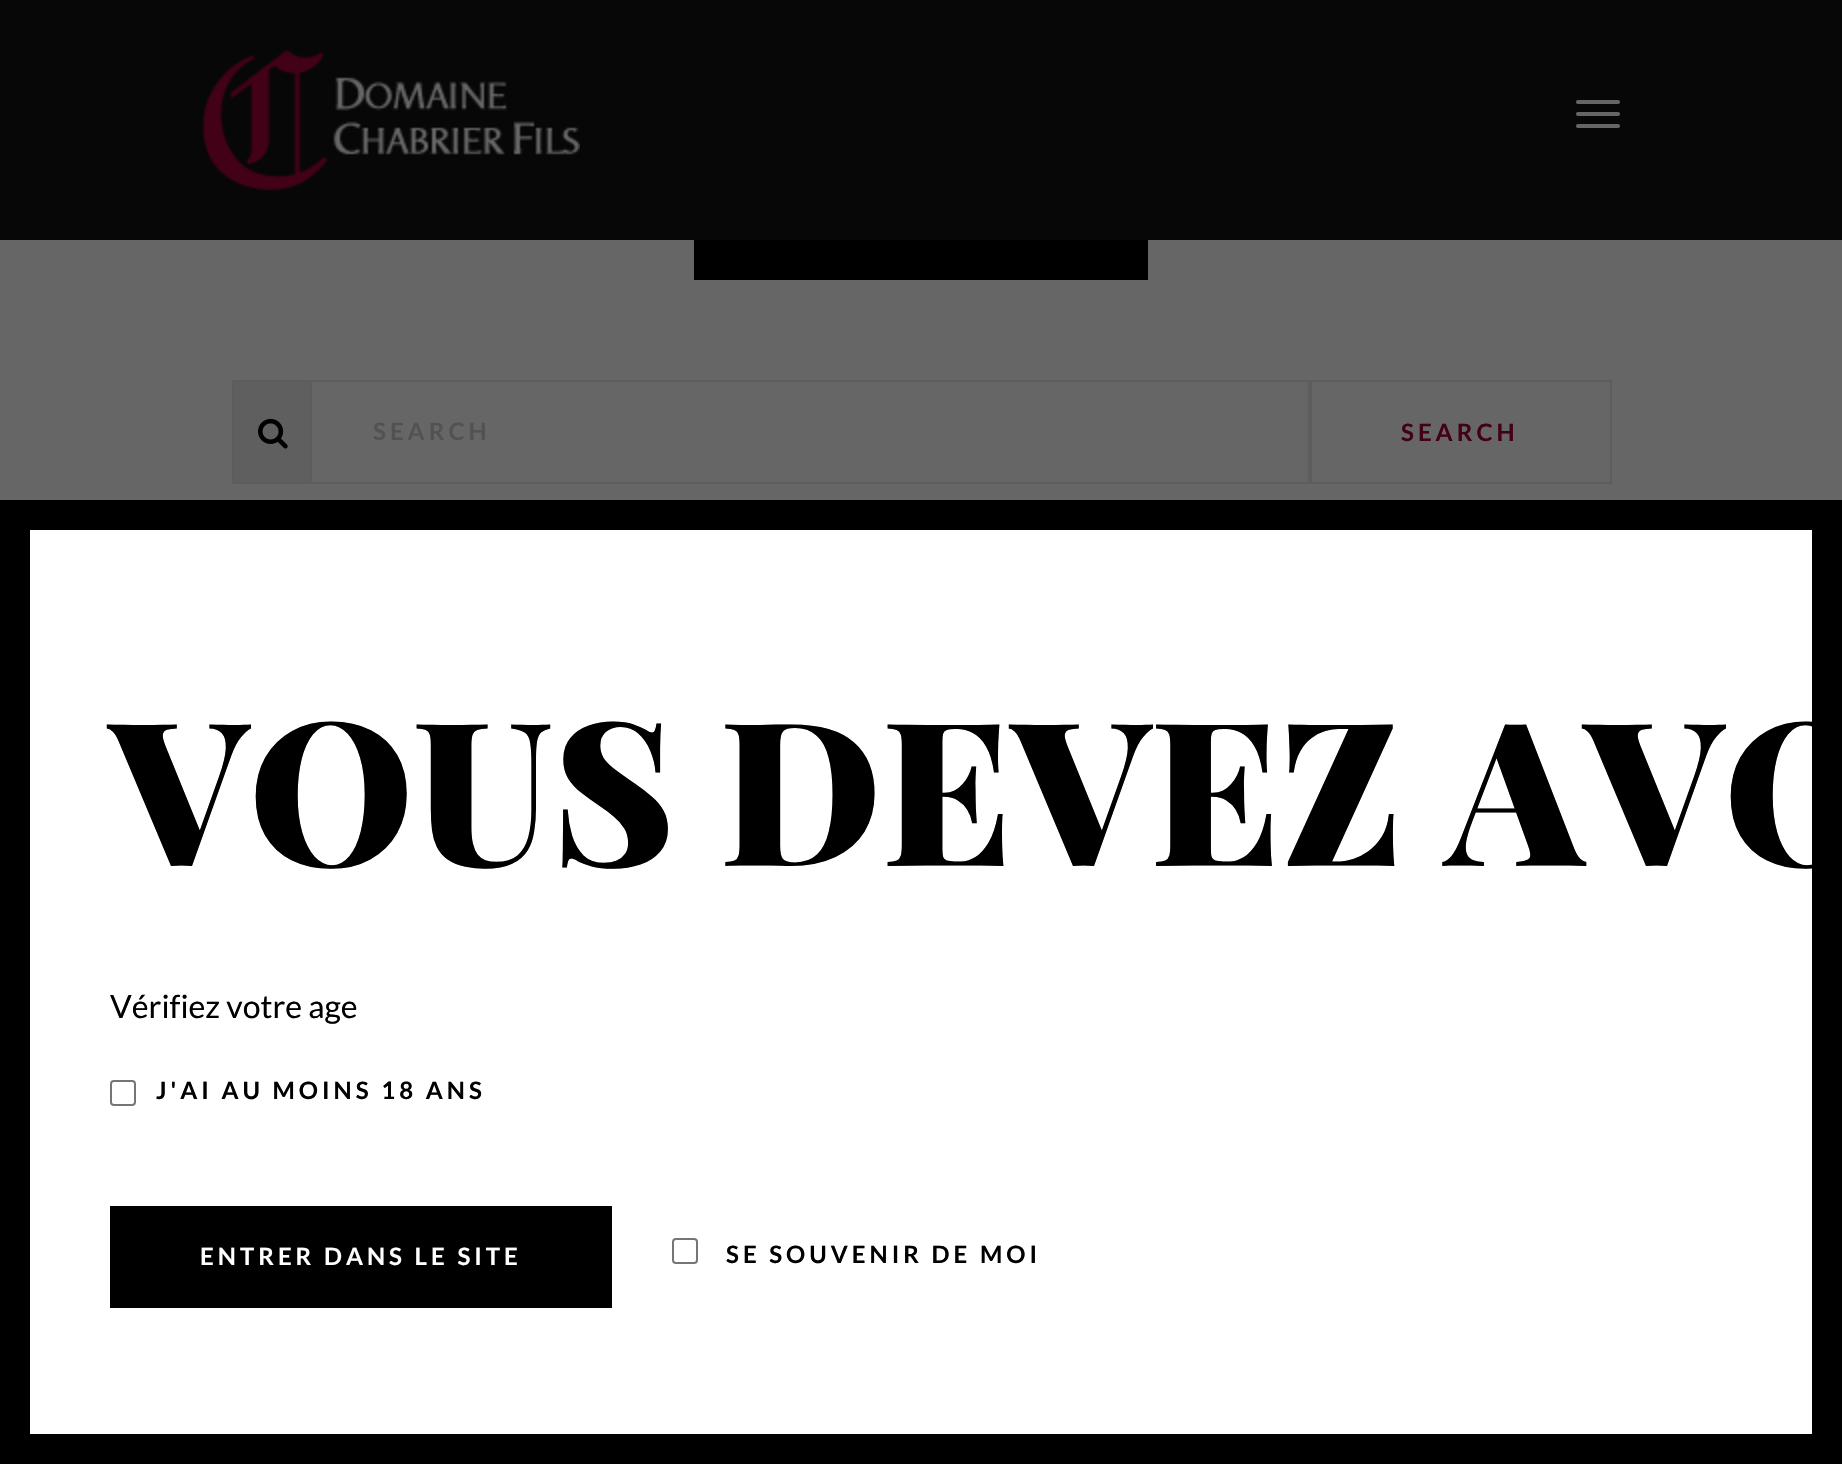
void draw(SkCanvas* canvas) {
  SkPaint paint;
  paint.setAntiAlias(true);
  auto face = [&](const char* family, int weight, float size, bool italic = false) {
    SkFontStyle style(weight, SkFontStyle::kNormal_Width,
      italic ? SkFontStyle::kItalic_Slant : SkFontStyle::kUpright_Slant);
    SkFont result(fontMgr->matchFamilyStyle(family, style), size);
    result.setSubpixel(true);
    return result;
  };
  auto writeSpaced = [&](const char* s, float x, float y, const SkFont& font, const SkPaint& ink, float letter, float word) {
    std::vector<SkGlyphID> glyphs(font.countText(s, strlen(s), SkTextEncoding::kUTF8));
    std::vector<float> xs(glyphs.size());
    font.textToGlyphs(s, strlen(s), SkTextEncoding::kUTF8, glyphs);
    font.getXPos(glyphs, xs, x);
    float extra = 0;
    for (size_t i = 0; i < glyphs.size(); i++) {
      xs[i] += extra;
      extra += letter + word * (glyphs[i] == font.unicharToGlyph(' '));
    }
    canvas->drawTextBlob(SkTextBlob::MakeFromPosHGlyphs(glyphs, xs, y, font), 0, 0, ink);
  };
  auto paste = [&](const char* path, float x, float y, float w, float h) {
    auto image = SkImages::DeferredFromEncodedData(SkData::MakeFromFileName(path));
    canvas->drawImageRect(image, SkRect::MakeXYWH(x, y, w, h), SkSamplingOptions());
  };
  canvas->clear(0xff666666);
  paint.setColor(0xff070707);
  canvas->drawRect(SkRect::MakeXYWH(0, 0, 1842, 240), paint);
  paste("img/1.png", 201, 49, 379, 142);
  paint.setColor(0xff666666);
  canvas->drawRoundRect(SkRect::MakeXYWH(1576, 100, 44, 4), 2, 2, paint);
  canvas->drawRoundRect(SkRect::MakeXYWH(1576, 112, 44, 4), 2, 2, paint);
  canvas->drawRoundRect(SkRect::MakeXYWH(1576, 124, 44, 4), 2, 2, paint);
  {
    const struct { float x, y, w, h; SkColor color; } items[] = {
      {694, 240, 454, 40, 0xff000000},
      {234, 382, 76, 100, 0xff5f5f5f},
      {232, 380, 78, 2, 0xff5d5d5d},
      {232, 482, 78, 2, 0xff5d5d5d},
      {232, 380, 2, 104, 0xff5d5d5d},
    };
    for (auto [x, y, w, h, color] : items) {
      paint.setColor(color);
      canvas->drawRect(SkRect::MakeXYWH(x, y, w, h), paint);
    }
  }
  paste("img/2.png", 258, 418, 30, 31);
  paint.setStroke(true);
  paint.setStrokeWidth(2);
  canvas->drawRect(SkRect::MakeXYWH(311, 381, 998, 102), paint);
  canvas->drawRect(SkRect::MakeXYWH(1311, 381, 300, 102), paint);
  paint.setStroke(false);
  paint.setColor(0xffffffff);
  canvas->drawRect(SkRect::MakeXYWH(15, 515, 1812, 934), paint);
  paint.setStroke(true);
  paint.setStrokeWidth(30);
  paint.setColor(0xff000000);
  canvas->drawRect(SkRect::MakeXYWH(15, 515, 1812, 934), paint);
  paint.setStrokeWidth(2);
  paint.setColor(0xff767676);
  canvas->drawRoundRect(SkRect::MakeXYWH(111, 1081, 24, 24), 3, 3, paint);
  paint.setStroke(false);
  paint.setColor(0xff000000);
  canvas->drawRect(SkRect::MakeXYWH(110, 1206, 502, 102), paint);
  paint.setStroke(true);
  paint.setColor(0xff767676);
  canvas->drawRoundRect(SkRect::MakeXYWH(673, 1239, 24, 24), 3, 3, paint);
  auto f0 = face("Lato", 700, 24);
  paint.setStroke(false);
  paint.setColor(0xff525252);
  writeSpaced("SEARCH", 373, 440, f0, paint, 4, 0);
  paint.setColor(0xff420116);
  writeSpaced("SEARCH", 1401, 441, f0, paint, 4, 0);
  auto f1 = face("Playfair Display", 900, 200);
  paint.setColor(0xff000000);
  canvas->drawString("VOUS DEVEZ AVO", 110, 866, f1, paint);
  auto f2 = face("Lato", 400, 32);
  canvas->drawString("Vérifiez votre age", 110, 1018, f2, paint);
  writeSpaced("J'AI AU MOINS 18 ANS", 156, 1099, f0, paint, 4, 0);
  paint.setColor(0xffffffff);
  writeSpaced("ENTRER DANS LE SITE", 200, 1265, f0, paint, 4, 0);
  paint.setColor(0xff000000);
  writeSpaced("SE SOUVENIR DE MOI", 726, 1263, f0, paint, 4, 0);
}
